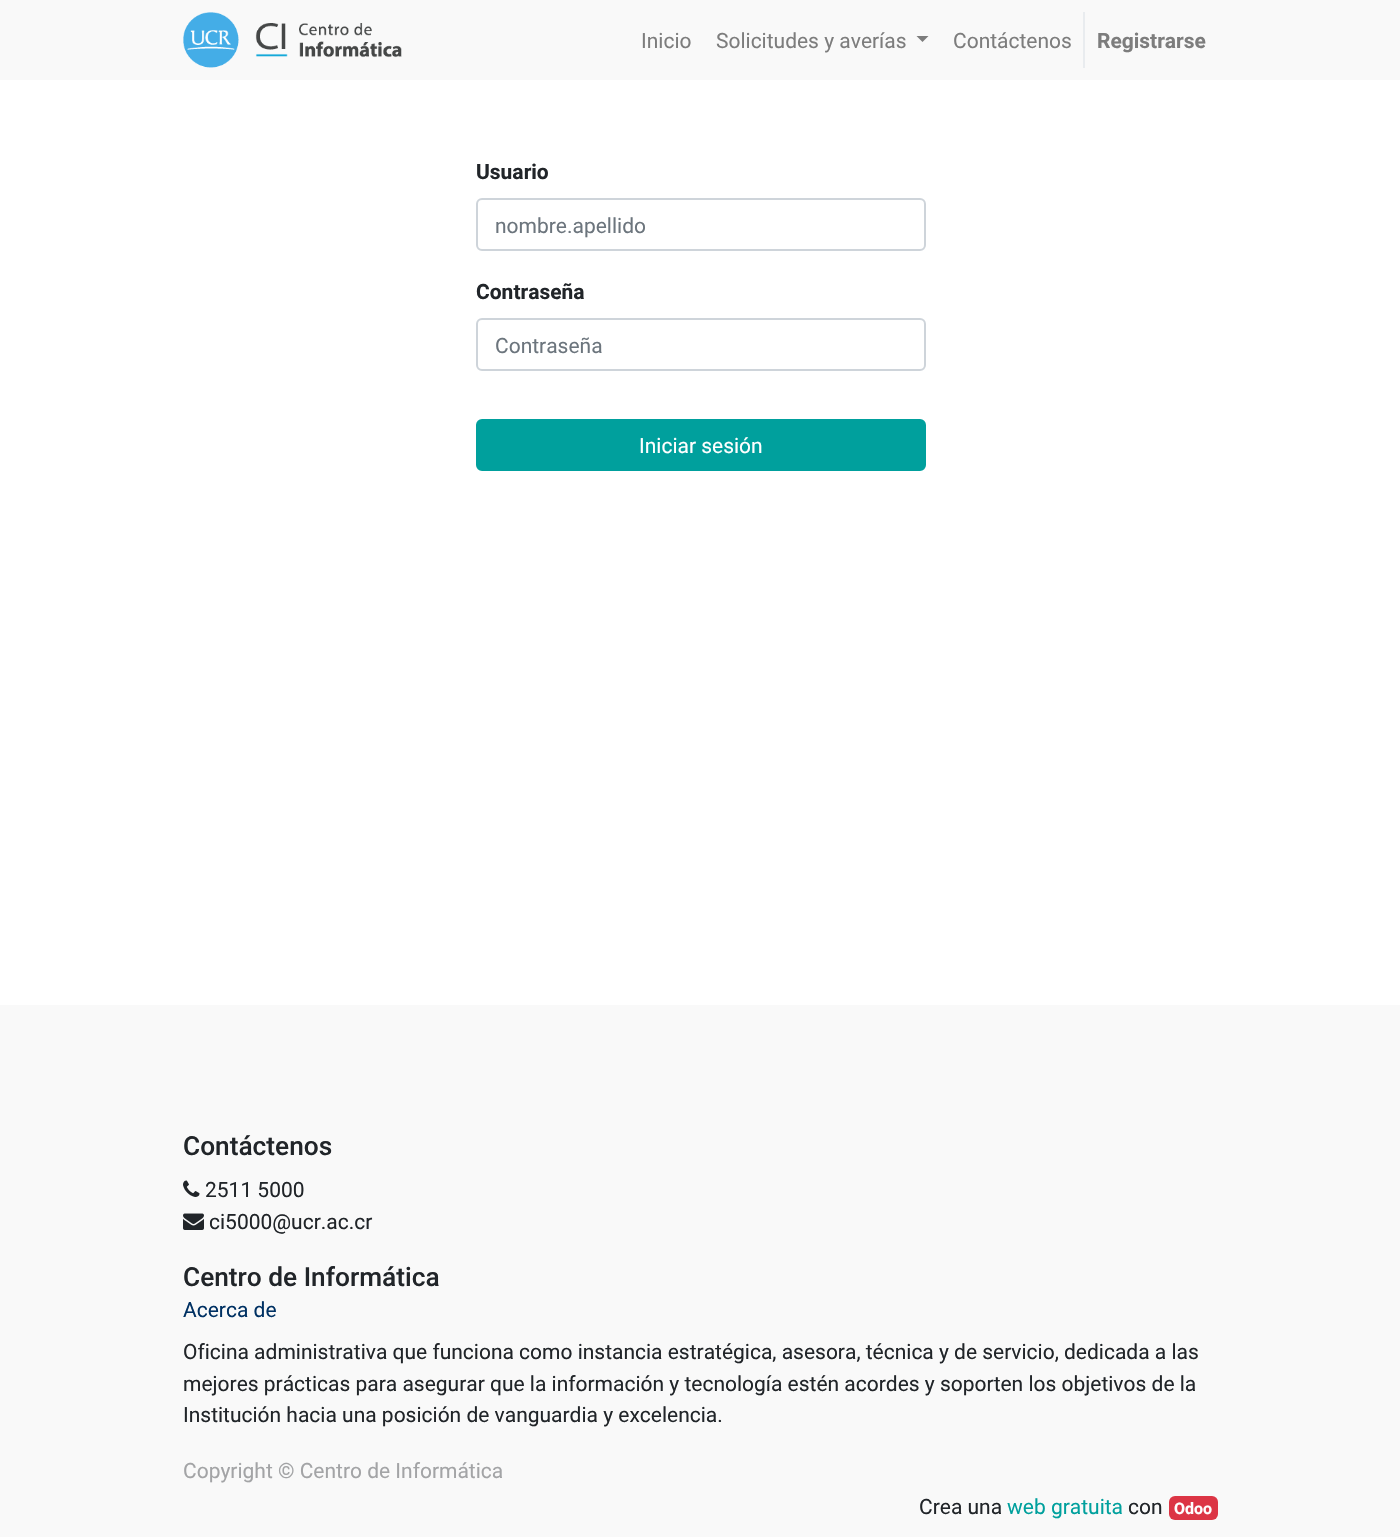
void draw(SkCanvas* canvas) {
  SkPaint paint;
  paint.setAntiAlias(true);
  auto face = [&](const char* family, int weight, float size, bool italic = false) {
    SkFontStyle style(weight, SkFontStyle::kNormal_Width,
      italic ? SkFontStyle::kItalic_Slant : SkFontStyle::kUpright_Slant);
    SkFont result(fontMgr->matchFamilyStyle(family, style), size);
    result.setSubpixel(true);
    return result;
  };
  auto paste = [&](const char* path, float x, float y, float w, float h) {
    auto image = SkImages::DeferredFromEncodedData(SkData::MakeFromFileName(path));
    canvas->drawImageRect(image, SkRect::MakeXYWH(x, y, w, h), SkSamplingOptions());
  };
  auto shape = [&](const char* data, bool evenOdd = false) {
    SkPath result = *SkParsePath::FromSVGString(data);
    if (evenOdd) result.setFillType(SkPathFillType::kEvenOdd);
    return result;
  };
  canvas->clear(0xffffffff);
  paint.setColor(0xfff9f9f9);
  canvas->drawRect(SkRect::MakeXYWH(0, 0, 1400, 80), paint);
  paste("img/1.png", 183, 12, 219, 56);
  paint.setColor(0xff7d7d7d);
  canvas->drawPath(shape("M916.5 36H928.5L922.5 42Z"), paint);
  paint.setColor(0xffe9ecef);
  canvas->drawRect(SkRect::MakeXYWH(1083, 12, 2, 56), paint);
  paint.setStroke(true);
  paint.setStrokeWidth(2);
  paint.setColor(0xffced4da);
  canvas->drawRoundRect(SkRect::MakeXYWH(477, 199, 448, 51), 5, 5, paint);
  canvas->drawRoundRect(SkRect::MakeXYWH(477, 319, 448, 51), 5, 5, paint);
  paint.setStroke(false);
  paint.setColor(0xff00a09d);
  canvas->drawRoundRect(SkRect::MakeXYWH(477, 420, 448, 50), 5, 5, paint);
  paint.setStroke(true);
  canvas->drawRoundRect(SkRect::MakeXYWH(477, 420, 448, 50), 5, 5, paint);
  paint.setStroke(false);
  paint.setColor(0xfff9f9f9);
  canvas->drawRect(SkRect::MakeXYWH(0, 1005, 1400, 532), paint);
  paste("img/2.png", 183, 1180, 17, 17);
  paste("img/3.png", 183, 1213, 21, 17);
  paint.setColor(0xffdc3545);
  canvas->drawRoundRect(SkRect::MakeXYWH(1169, 1496, 49, 24), 6, 6, paint);
  auto f0 = face("Roboto", 400, 21);
  paint.setColor(0xff7d7d7d);
  {
    const struct { const char* s; float x, y; } items[] = {
      {"Inicio", 641, 48},
      {"Solicitudes y averías", 716, 48},
      {"Contáctenos", 953, 48},
    };
    for (auto [s, x, y] : items) {
      canvas->drawString(s, x, y, f0, paint);
    }
  }
  auto f1 = face("Roboto", 700, 21);
  canvas->drawString("Registrarse", 1097, 48, f1, paint);
  paint.setColor(0xff212529);
  canvas->drawString("Usuario", 476, 179, f1, paint);
  paint.setColor(0xff6c757d);
  canvas->drawString("nombre.apellido", 495, 233, f0, paint);
  paint.setColor(0xff212529);
  canvas->drawString("Contraseña", 476, 299, f1, paint);
  paint.setColor(0xff6c757d);
  canvas->drawString("Contraseña", 495, 353, f0, paint);
  paint.setColor(0xffffffff);
  canvas->drawString("Iniciar sesión", 639, 453, f0, paint);
  auto f2 = face("Roboto", 500, 26.25f);
  paint.setColor(0xff212529);
  canvas->drawString("Contáctenos", 183, 1155, f2, paint);
  canvas->drawString("2511 5000", 205, 1197, f0, paint);
  canvas->drawString("ci5000@ucr.ac.cr", 209, 1229, f0, paint);
  canvas->drawString("Centro de Informática", 183, 1286, f2, paint);
  paint.setColor(0xff003163);
  canvas->drawString("Acerca de", 183, 1317, f0, paint);
  paint.setColor(0xff212529);
  {
    const struct { const char* s; float x, y; } items[] = {
      {"Oficina administrativa que funciona como instancia estratégica, asesora, técnica y de servicio, dedicada a las", 183, 1359},
      {"mejores prácticas para asegurar que la información y tecnología estén acordes y soporten los objetivos de la", 183, 1391},
      {"Institución hacia una posición de vanguardia y excelencia.", 183, 1422},
    };
    for (auto [s, x, y] : items) {
      canvas->drawString(s, x, y, f0, paint);
    }
  }
  paint.setColor(0xffa3a4a6);
  canvas->drawString("Copyright © Centro de Informática", 183, 1478, f0, paint);
  paint.setColor(0xff212529);
  canvas->drawString("Crea una", 919, 1514, f0, paint);
  paint.setColor(0xff00a09d);
  canvas->drawString("web gratuita", 1007, 1514, f0, paint);
  paint.setColor(0xff212529);
  canvas->drawString("con", 1128, 1514, f0, paint);
  auto f3 = face("Roboto", 700, 16);
  paint.setColor(0xffffffff);
  canvas->drawString("Odoo", 1174, 1514, f3, paint);
}
